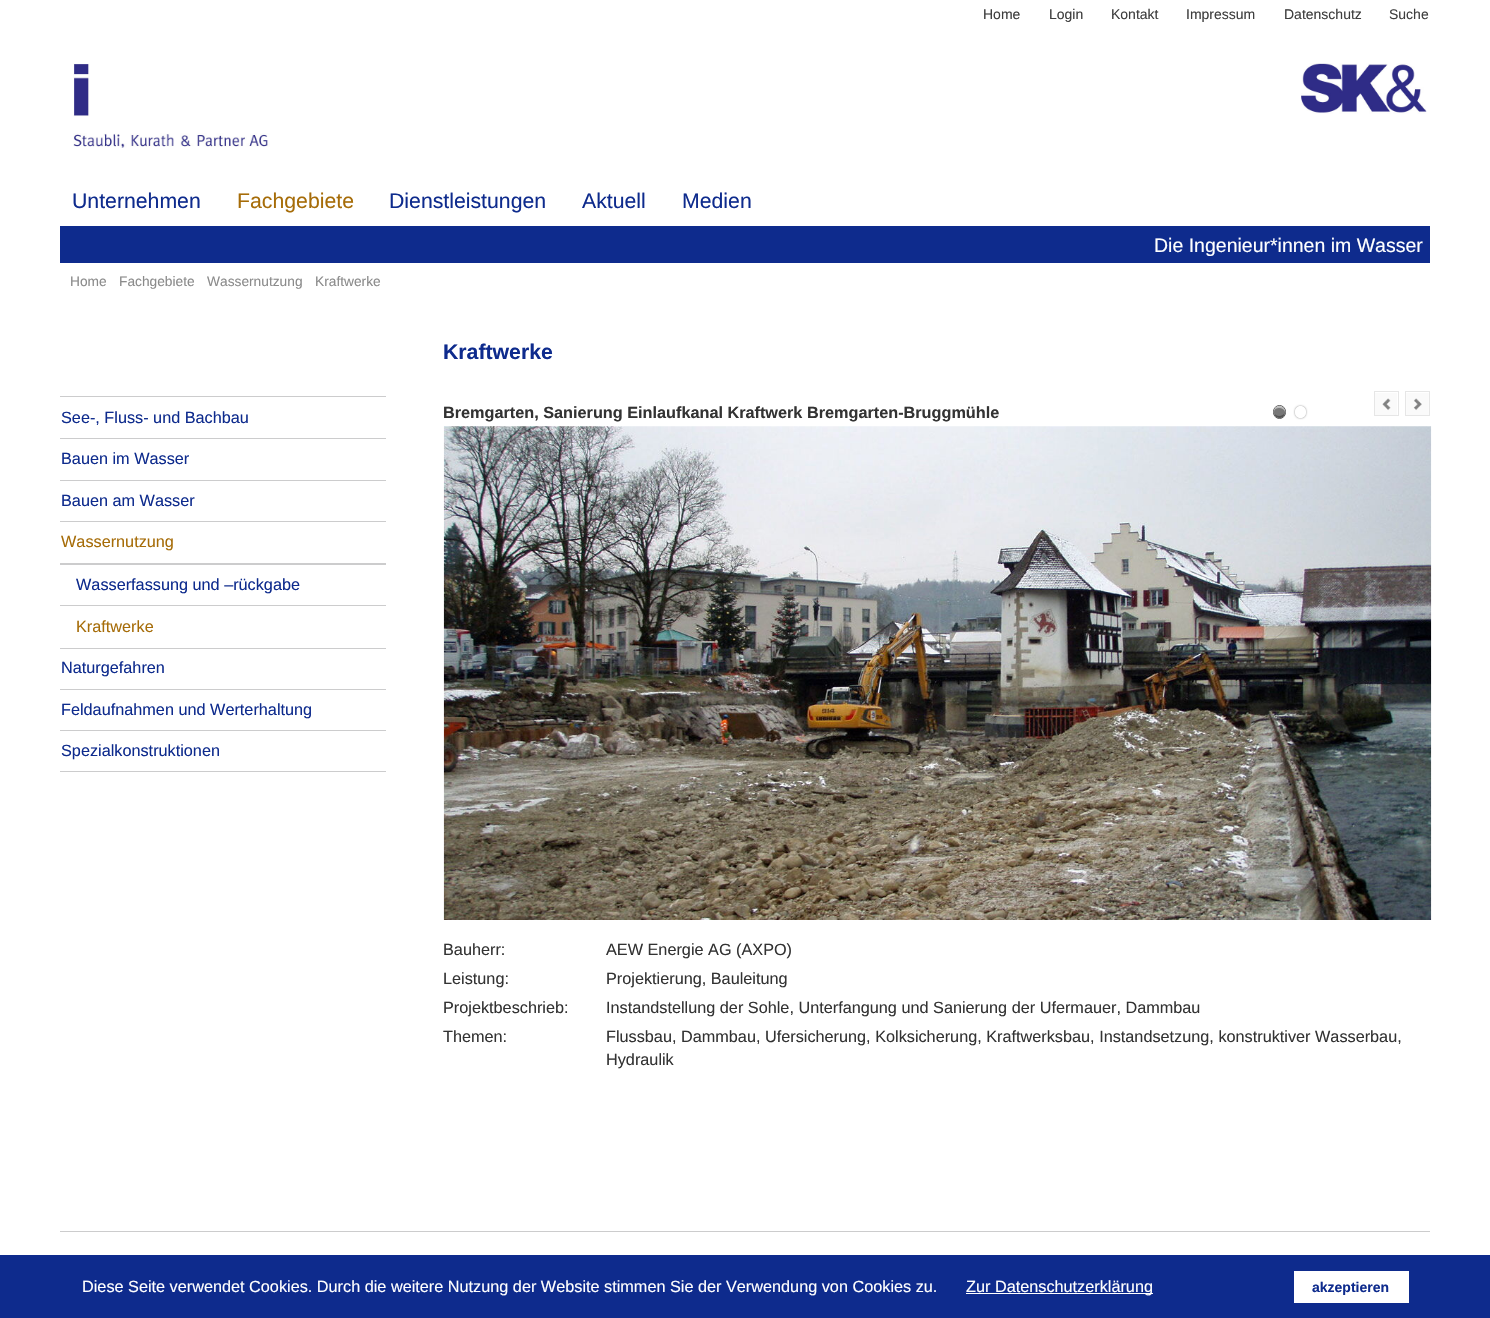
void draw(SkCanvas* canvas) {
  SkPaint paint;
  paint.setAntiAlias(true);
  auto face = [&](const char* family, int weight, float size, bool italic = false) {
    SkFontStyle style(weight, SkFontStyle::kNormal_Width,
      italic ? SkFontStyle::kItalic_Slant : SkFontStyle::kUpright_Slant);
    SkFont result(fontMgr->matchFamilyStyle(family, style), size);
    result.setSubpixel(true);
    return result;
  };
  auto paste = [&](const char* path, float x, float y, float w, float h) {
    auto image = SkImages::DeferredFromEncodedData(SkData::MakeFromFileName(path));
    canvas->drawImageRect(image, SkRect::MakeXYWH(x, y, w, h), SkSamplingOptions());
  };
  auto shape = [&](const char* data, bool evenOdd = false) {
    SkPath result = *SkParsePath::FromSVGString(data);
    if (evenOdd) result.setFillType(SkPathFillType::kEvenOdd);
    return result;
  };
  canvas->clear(0xffffffff);
  paste("img/1.png", 73, 63, 197, 85);
  paste("img/2.png", 1301, 63, 126, 51);
  {
    const struct { float x, y, w, h; SkColor color; } items[] = {
      {60, 226, 1370, 37, 0xff0e2b8d},
      {60, 396, 326, 1, 0xffcccccd},
      {60, 438, 326, 1, 0xffcccccd},
      {60, 480, 326, 1, 0xffcccccd},
      {60, 521, 326, 1, 0xffcccccd},
      {60, 563, 326, 2, 0xffcccccd},
      {60, 605, 326, 1, 0xffcccccd},
      {60, 648, 326, 1, 0xffcccccd},
      {60, 689, 326, 1, 0xffcccccd},
      {60, 730, 326, 1, 0xffcccccd},
      {60, 771, 326, 1, 0xffcccccd},
    };
    for (auto [x, y, w, h, color] : items) {
      paint.setColor(color);
      canvas->drawRect(SkRect::MakeXYWH(x, y, w, h), paint);
    }
  }
  paint.setStroke(true);
  paint.setStrokeWidth(1);
  paint.setColor(0xff555555);
  canvas->drawRoundRect(SkRect::MakeXYWH(1273.5f, 405.5f, 12, 13), 6, 6, paint);
  paint.setStroke(false);
  paint.setColor(0xff777777);
  canvas->drawRoundRect(SkRect::MakeXYWH(1274, 406, 11, 12), 5.5f, 5.5f, paint);
  paint.setColor(0x4d000000);
  canvas->drawPath(shape("M1274 413C1275 420 1285 419.5 1285 412.5C1283 416.5 1276.5 417.5 1274 413Z"), paint);
  paint.setColor(0x80ffffff);
  canvas->drawPath(shape("M1279 408C1282 408 1284 409.5 1285 411.5C1285 405 1275 404 1274 410.5C1275 409 1276.5 408 1279 408Z"), paint);
  canvas->save();
  canvas->clipPath(shape("M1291 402H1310V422H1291ZM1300.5 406C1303.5 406 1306 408.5 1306 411.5V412.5C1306 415.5 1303.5 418 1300.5 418C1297.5 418 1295 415.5 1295 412.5V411.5C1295 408.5 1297.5 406 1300.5 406Z", true), true);
  paint.setColor(0xff777777);
  paint.setMaskFilter(SkMaskFilter::MakeBlur(kNormal_SkBlurStyle, 1));
  canvas->drawRoundRect(SkRect::MakeXYWH(1295, 406, 11, 12), 5.5f, 5.5f, paint);
  paint.setMaskFilter(nullptr);
  canvas->restore();
  paint.setColor(0xccffffff);
  canvas->drawRoundRect(SkRect::MakeXYWH(1295, 406, 11, 12), 5.5f, 5.5f, paint);
  paste("img/3.png", 1375, 393, 22, 22);
  paint.setStroke(true);
  paint.setColor(0xffe6e6e6);
  canvas->drawRect(SkRect::MakeXYWH(1374.5f, 391.5f, 24, 24), paint);
  paste("img/4.png", 1406, 393, 23, 22);
  canvas->drawRect(SkRect::MakeXYWH(1405.5f, 391.5f, 24, 24), paint);
  paste("img/5.png", 443, 426, 989, 494);
  paint.setStroke(false);
  {
    const struct { float x, y, w, h; SkColor color; } items[] = {
      {60, 1231, 1370, 1, 0xffcccccd},
      {0, 1255, 1490, 63, 0xff0e2b8d},
      {966, 1293, 187, 1, 0xffffffff},
      {1294, 1271, 115, 32, 0xffffffff},
    };
    for (auto [x, y, w, h, color] : items) {
      paint.setColor(color);
      canvas->drawRect(SkRect::MakeXYWH(x, y, w, h), paint);
    }
  }
  auto f0 = face("Liberation Sans", 400, 14);
  paint.setColor(0xff3e3e3e);
  {
    const struct { const char* s; float x, y; } items[] = {
      {"Home", 983, 19},
      {"Login", 1049, 19},
      {"Kontakt", 1111, 19},
      {"Impressum", 1186, 19},
      {"Datenschutz", 1284, 19},
      {"Suche", 1389, 19},
    };
    for (auto [s, x, y] : items) {
      canvas->drawString(s, x, y, f0, paint);
    }
  }
  auto f1 = face("Liberation Sans", 400, 21.25f);
  paint.setColor(0xff0e2b8d);
  canvas->drawString("Unternehmen", 72, 208, f1, paint);
  paint.setColor(0xffa66c08);
  canvas->drawString("Fachgebiete", 237, 208, f1, paint);
  paint.setColor(0xff0e2b8d);
  {
    const struct { const char* s; float x, y; } items[] = {
      {"Dienstleistungen", 389, 208},
      {"Aktuell", 582, 208},
      {"Medien", 682, 208},
    };
    for (auto [s, x, y] : items) {
      canvas->drawString(s, x, y, f1, paint);
    }
  }
  auto f2 = face("Liberation Sans", 400, 19.5f);
  paint.setColor(0xffffffff);
  canvas->drawString("Die Ingenieur*innen im Wasser", 1154, 252, f2, paint);
  auto f3 = face("Liberation Sans", 400, 13.75f);
  paint.setColor(0xff8b8b8b);
  {
    const struct { const char* s; float x, y; } items[] = {
      {"Home", 70, 286},
      {"Fachgebiete", 119, 286},
      {"Wassernutzung", 207, 286},
      {"Kraftwerke", 315, 286},
    };
    for (auto [s, x, y] : items) {
      canvas->drawString(s, x, y, f3, paint);
    }
  }
  auto f4 = face("Liberation Sans", 400, 16.25f);
  paint.setColor(0xff0e2b8d);
  {
    const struct { const char* s; float x, y; } items[] = {
      {"See-, Fluss- und Bachbau", 61, 423},
      {"Bauen im Wasser", 61, 464},
      {"Bauen am Wasser", 61, 506},
    };
    for (auto [s, x, y] : items) {
      canvas->drawString(s, x, y, f4, paint);
    }
  }
  paint.setColor(0xffa66c08);
  canvas->drawString("Wassernutzung", 61, 547, f4, paint);
  paint.setColor(0xff0e2b8d);
  canvas->drawString("Wasserfassung und –rückgabe", 76, 590, f4, paint);
  paint.setColor(0xffa66c08);
  canvas->drawString("Kraftwerke", 76, 632, f4, paint);
  paint.setColor(0xff0e2b8d);
  {
    const struct { const char* s; float x, y; } items[] = {
      {"Naturgefahren", 61, 673},
      {"Feldaufnahmen und Werterhaltung", 61, 715},
      {"Spezialkonstruktionen", 61, 756},
    };
    for (auto [s, x, y] : items) {
      canvas->drawString(s, x, y, f4, paint);
    }
  }
  auto f5 = face("Liberation Sans", 700, 21.25f);
  canvas->drawString("Kraftwerke", 443, 359, f5, paint);
  auto f6 = face("Liberation Sans", 700, 16.25f);
  paint.setColor(0xff333333);
  canvas->drawString("Bremgarten, Sanierung Einlaufkanal Kraftwerk Bremgarten-Bruggmühle", 443, 418, f6, paint);
  {
    const struct { const char* s; float x, y; } items[] = {
      {"Bauherr:", 443, 955},
      {"AEW Energie AG (AXPO)", 606, 955},
      {"Leistung:", 443, 984},
      {"Projektierung, Bauleitung", 606, 984},
      {"Projektbeschrieb:", 443, 1013},
      {"Instandstellung der Sohle, Unterfangung und Sanierung der Ufermauer, Dammbau", 606, 1013},
      {"Themen:", 443, 1042},
      {"Flussbau, Dammbau, Ufersicherung, Kolksicherung, Kraftwerksbau, Instandsetzung, konstruktiver Wasserbau,", 606, 1042},
      {"Hydraulik", 606, 1065},
    };
    for (auto [s, x, y] : items) {
      canvas->drawString(s, x, y, f4, paint);
    }
  }
  paint.setColor(0xffffffff);
  canvas->drawString("Diese Seite verwendet Cookies. Durch die weitere Nutzung der Website stimmen Sie der Verwendung von Cookies zu.", 82, 1292, f4, paint);
  canvas->drawString("Zur Datenschutzerklärung", 966, 1292, f4, paint);
  auto f7 = face("Liberation Sans", 700, 14);
  paint.setColor(0xff0e2b8d);
  canvas->drawString("akzeptieren", 1312, 1292, f7, paint);
}
